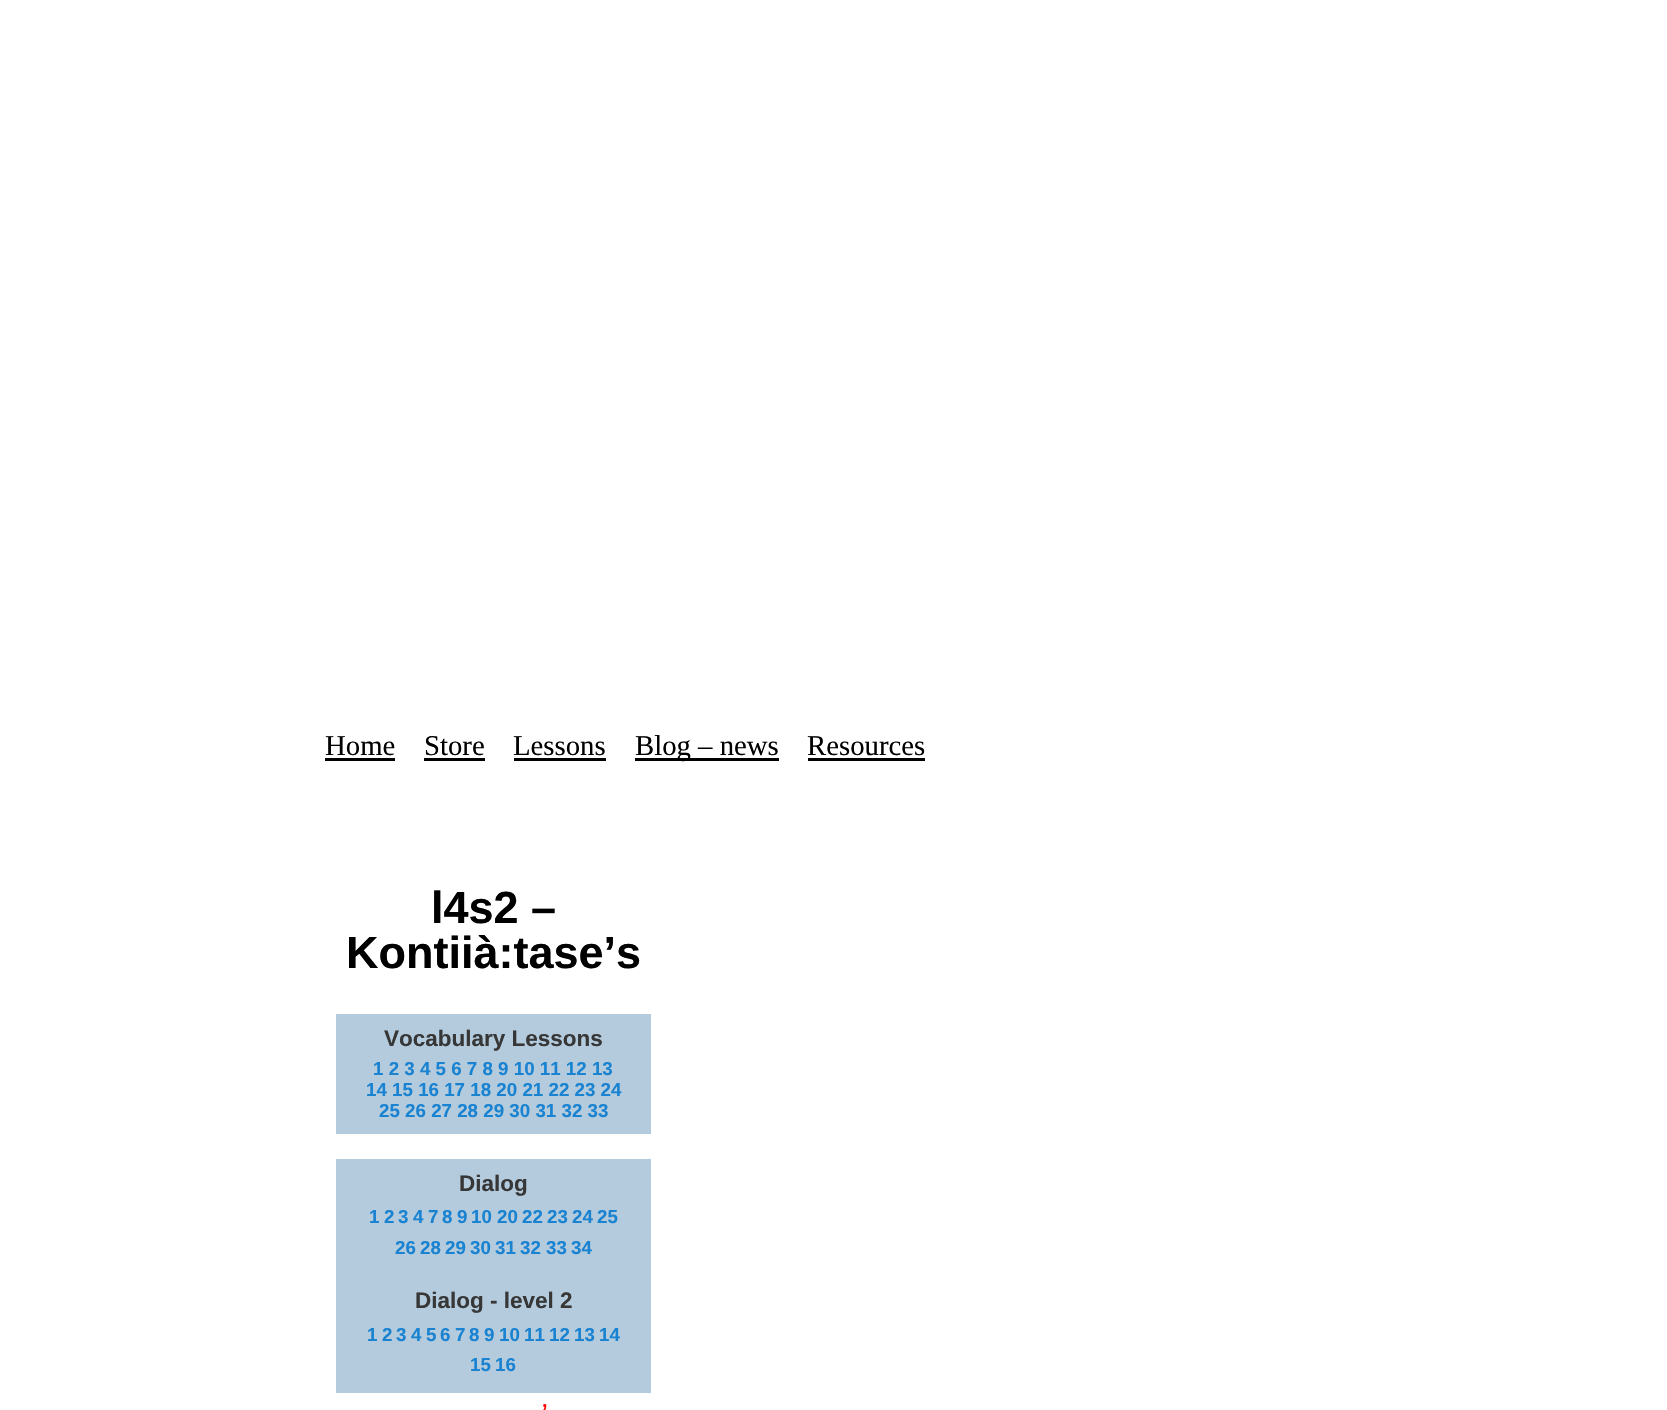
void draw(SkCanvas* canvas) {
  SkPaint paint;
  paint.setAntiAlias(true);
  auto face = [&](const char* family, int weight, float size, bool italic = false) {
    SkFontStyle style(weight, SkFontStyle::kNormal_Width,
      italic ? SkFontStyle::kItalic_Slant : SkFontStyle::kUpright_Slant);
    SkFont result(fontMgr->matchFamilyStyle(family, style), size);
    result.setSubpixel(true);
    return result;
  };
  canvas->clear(0xffffffff);
  {
    const struct { float x, y, w, h; SkColor color; } items[] = {
      {325, 758, 70, 3, 0xff000000},
      {424, 758, 61, 3, 0xff000000},
      {514, 758, 92, 3, 0xff000000},
      {635, 758, 144, 3, 0xff000000},
      {808, 758, 117, 3, 0xff000000},
      {336, 1014, 315, 120, 0xffb3cbdd},
      {336, 1159, 315, 234, 0xffb3cbdd},
    };
    for (auto [x, y, w, h, color] : items) {
      paint.setColor(color);
      canvas->drawRect(SkRect::MakeXYWH(x, y, w, h), paint);
    }
  }
  auto f0 = face("Liberation Serif", 400, 28.75f);
  paint.setColor(0xff000000);
  {
    const struct { const char* s; float x, y; } items[] = {
      {"Home", 325, 755},
      {"Store", 424, 755},
      {"Lessons", 513, 755},
      {"Blog – news", 635, 755},
      {"Resources", 807, 755},
    };
    for (auto [s, x, y] : items) {
      canvas->drawString(s, x, y, f0, paint);
    }
  }
  auto f1 = face("Liberation Sans", 700, 45);
  canvas->drawString("l4s2 –", 431, 923, f1, paint);
  canvas->drawString("Kontiià:tase’s", 346, 968, f1, paint);
  auto f2 = face("Liberation Sans", 700, 22.5f);
  paint.setColor(0xff373737);
  canvas->drawString("Vocabulary Lessons", 384, 1046, f2, paint);
  auto f3 = face("Liberation Sans", 700, 18.75f);
  paint.setColor(0xff1982d1);
  {
    const struct { const char* s; float x, y; } items[] = {
      {"1 2 3 4 5 6 7 8 9 10 11 12 13", 373, 1075},
      {"14 15 16 17 18 20 21 22 23 24", 366, 1096},
      {"25 26 27 28 29 30 31 32 33", 379, 1117},
    };
    for (auto [s, x, y] : items) {
      canvas->drawString(s, x, y, f3, paint);
    }
  }
  paint.setColor(0xff373737);
  canvas->drawString("Dialog", 459, 1191, f2, paint);
  paint.setColor(0xff1982d1);
  {
    const struct { const char* s; float x, y; } items[] = {
      {"1", 369, 1223},
      {"2", 384, 1223},
      {"3", 398, 1223},
      {"4", 413, 1223},
      {"7", 428, 1223},
      {"8", 442, 1223},
      {"9", 457, 1223},
      {"10", 471, 1223},
      {"20", 497, 1223},
      {"22", 522, 1223},
      {"23", 547, 1223},
      {"24", 572, 1223},
      {"25", 597, 1223},
      {"26", 395, 1254},
      {"28", 420, 1254},
      {"29", 445, 1254},
      {"30", 470, 1254},
      {"31", 495, 1254},
      {"32", 520, 1254},
      {"33", 546, 1254},
      {"34", 571, 1254},
    };
    for (auto [s, x, y] : items) {
      canvas->drawString(s, x, y, f3, paint);
    }
  }
  paint.setColor(0xff373737);
  canvas->drawString("Dialog - level 2", 415, 1308, f2, paint);
  paint.setColor(0xff1982d1);
  {
    const struct { const char* s; float x, y; } items[] = {
      {"1", 367, 1341},
      {"2", 382, 1341},
      {"3", 396, 1341},
      {"4", 411, 1341},
      {"5", 426, 1341},
      {"6", 440, 1341},
      {"7", 455, 1341},
      {"8", 469, 1341},
      {"9", 484, 1341},
      {"10", 499, 1341},
      {"11", 524, 1341},
      {"12", 549, 1341},
      {"13", 574, 1341},
      {"14", 599, 1341},
      {"15", 470, 1371},
      {"16", 495, 1371},
    };
    for (auto [s, x, y] : items) {
      canvas->drawString(s, x, y, f3, paint);
    }
  }
  auto f4 = face("Liberation Sans", 700, 20);
  paint.setColor(0xffff0000);
  canvas->drawString("’", 542, 1418, f4, paint);
}
